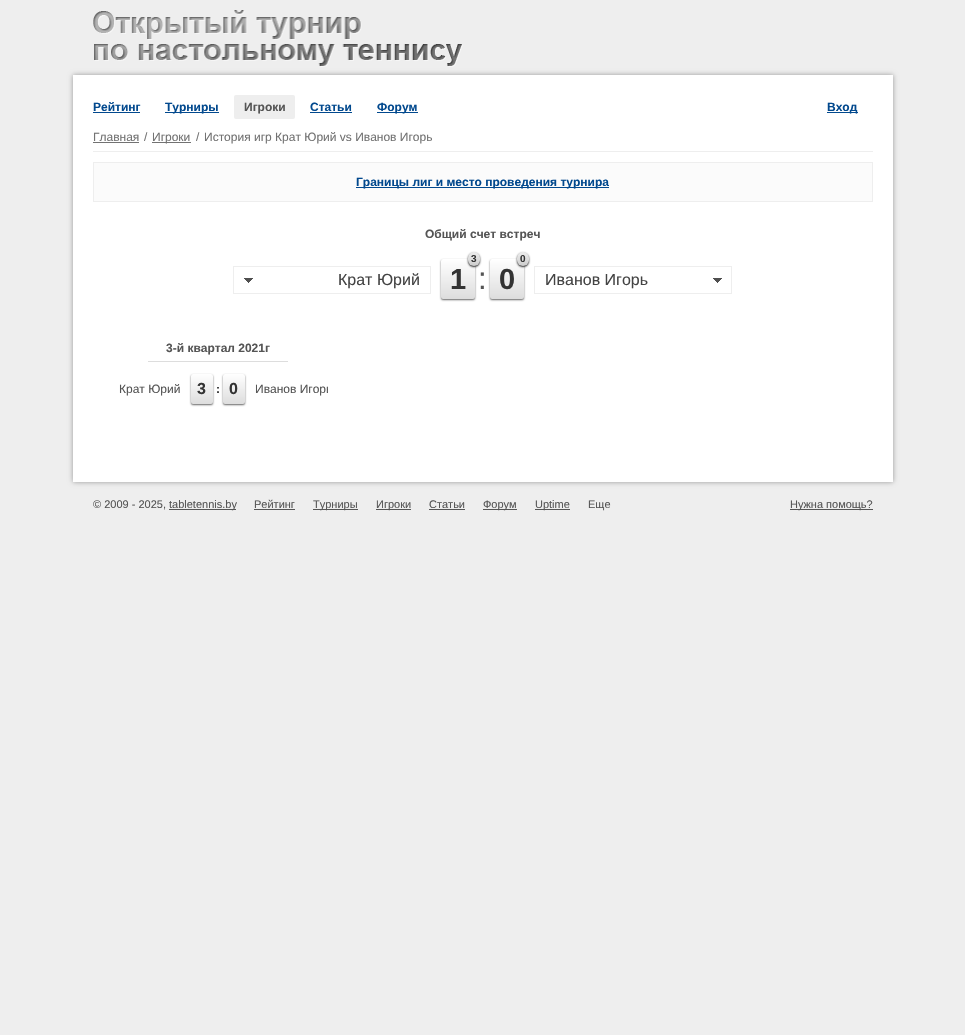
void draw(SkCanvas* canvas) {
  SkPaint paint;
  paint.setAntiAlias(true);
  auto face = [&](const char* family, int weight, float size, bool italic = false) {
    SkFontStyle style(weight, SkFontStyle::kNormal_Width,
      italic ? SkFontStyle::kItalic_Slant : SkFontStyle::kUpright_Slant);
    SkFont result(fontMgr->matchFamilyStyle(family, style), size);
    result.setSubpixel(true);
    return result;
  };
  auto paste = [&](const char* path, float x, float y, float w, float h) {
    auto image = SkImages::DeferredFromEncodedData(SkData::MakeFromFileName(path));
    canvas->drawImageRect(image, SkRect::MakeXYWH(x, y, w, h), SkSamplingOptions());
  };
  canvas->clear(0xffeeeeee);
  paint.setColor(0xff999999);
  paint.setMaskFilter(SkMaskFilter::MakeBlur(kNormal_SkBlurStyle, 2.5f));
  canvas->drawRect(SkRect::MakeXYWH(73, 75, 820, 407), paint);
  paint.setMaskFilter(nullptr);
  paste("img/1.png", 93, 10, 370, 57);
  {
    const struct { float x, y, w, h; SkColor color; } items[] = {
      {73, 75, 820, 407, 0xffffffff},
      {93, 112, 47, 1, 0xff02498e},
      {165, 112, 54, 1, 0xff02498e},
    };
    for (auto [x, y, w, h, color] : items) {
      paint.setColor(color);
      canvas->drawRect(SkRect::MakeXYWH(x, y, w, h), paint);
    }
  }
  paint.setColor(0xffeeeeee);
  canvas->drawRoundRect(SkRect::MakeXYWH(234, 95, 61, 24), 2, 2, paint);
  {
    const struct { float x, y, w, h; SkColor color; } items[] = {
      {310, 112, 42, 1, 0xff02498e},
      {377, 112, 41, 1, 0xff02498e},
      {827, 112, 31, 1, 0xff02498e},
      {93, 142, 46, 1, 0xff727272},
      {152, 142, 39, 1, 0xff727272},
      {93, 151, 780, 1, 0xffeeeeee},
    };
    for (auto [x, y, w, h, color] : items) {
      paint.setColor(color);
      canvas->drawRect(SkRect::MakeXYWH(x, y, w, h), paint);
    }
  }
  paint.setColor(0xfffbfbfb);
  canvas->drawRect(SkRect::MakeXYWH(93.5f, 162.5f, 779, 39), paint);
  paint.setStroke(true);
  paint.setStrokeWidth(1);
  paint.setColor(0xffeeeeee);
  canvas->drawRect(SkRect::MakeXYWH(93.5f, 162.5f, 779, 39), paint);
  paint.setStroke(false);
  paint.setColor(0xff02498e);
  canvas->drawRect(SkRect::MakeXYWH(356, 187, 253, 1), paint);
  paste("img/2.png", 244, 278, 9, 5);
  paint.setStroke(true);
  paint.setColor(0xffeeeeee);
  canvas->drawRect(SkRect::MakeXYWH(233.5f, 266.5f, 197, 27), paint);
  paint.setStroke(false);
  paint.setColor(0xff666666);
  paint.setMaskFilter(SkMaskFilter::MakeBlur(kNormal_SkBlurStyle, 1));
  canvas->drawRoundRect(SkRect::MakeXYWH(441, 260, 34, 40), 2, 2, paint);
  paint.setMaskFilter(nullptr);
  {
    const SkColor colors[] = {0xffffffff, 0xffdddddd};
    const float stops[] = {0, 1};
    const SkPoint ends[] = {{458, 259}, {458, 299}};
    paint.setShader(SkGradientShader::MakeLinear(ends, colors, stops, 2, SkTileMode::kClamp));
    paint.setAlpha(255);
  }
  canvas->drawRoundRect(SkRect::MakeXYWH(441, 259, 34, 40), 2, 2, paint);
  paint.setShader(nullptr);
  paint.setColor(0xff222222);
  paint.setMaskFilter(SkMaskFilter::MakeBlur(kNormal_SkBlurStyle, 1));
  canvas->drawRoundRect(SkRect::MakeXYWH(468, 253, 12, 14), 6, 6, paint);
  paint.setMaskFilter(nullptr);
  {
    const SkColor colors[] = {0xffeeeeee, 0xffcccccc};
    const float stops[] = {0, 1};
    const SkPoint ends[] = {{474, 252}, {474, 266}};
    paint.setShader(SkGradientShader::MakeLinear(ends, colors, stops, 2, SkTileMode::kClamp));
    paint.setAlpha(255);
  }
  canvas->drawRoundRect(SkRect::MakeXYWH(468, 252, 12, 14), 6, 6, paint);
  paint.setShader(nullptr);
  paint.setColor(0xff666666);
  paint.setMaskFilter(SkMaskFilter::MakeBlur(kNormal_SkBlurStyle, 1));
  canvas->drawRoundRect(SkRect::MakeXYWH(490, 260, 34, 40), 2, 2, paint);
  paint.setMaskFilter(nullptr);
  {
    const SkColor colors[] = {0xffffffff, 0xffdddddd};
    const float stops[] = {0, 1};
    const SkPoint ends[] = {{507, 259}, {507, 299}};
    paint.setShader(SkGradientShader::MakeLinear(ends, colors, stops, 2, SkTileMode::kClamp));
    paint.setAlpha(255);
  }
  canvas->drawRoundRect(SkRect::MakeXYWH(490, 259, 34, 40), 2, 2, paint);
  paint.setShader(nullptr);
  paint.setColor(0xff222222);
  paint.setMaskFilter(SkMaskFilter::MakeBlur(kNormal_SkBlurStyle, 1));
  canvas->drawRoundRect(SkRect::MakeXYWH(517, 253, 12, 14), 6, 6, paint);
  paint.setMaskFilter(nullptr);
  {
    const SkColor colors[] = {0xffeeeeee, 0xffcccccc};
    const float stops[] = {0, 1};
    const SkPoint ends[] = {{523, 252}, {523, 266}};
    paint.setShader(SkGradientShader::MakeLinear(ends, colors, stops, 2, SkTileMode::kClamp));
    paint.setAlpha(255);
  }
  canvas->drawRoundRect(SkRect::MakeXYWH(517, 252, 12, 14), 6, 6, paint);
  paste("img/2.png", 713, 278, 9, 5);
  paint.setStroke(true);
  paint.setShader(nullptr);
  paint.setColor(0xffeeeeee);
  canvas->drawRect(SkRect::MakeXYWH(534.5f, 266.5f, 197, 27), paint);
  paint.setStroke(false);
  paint.setColor(0xffdddddd);
  canvas->drawRect(SkRect::MakeXYWH(148, 361, 140, 1), paint);
  paint.setColor(0xff666666);
  paint.setMaskFilter(SkMaskFilter::MakeBlur(kNormal_SkBlurStyle, 1));
  canvas->drawRoundRect(SkRect::MakeXYWH(191, 375, 22, 30), 2, 2, paint);
  paint.setMaskFilter(nullptr);
  {
    const SkColor colors[] = {0xffffffff, 0xffdddddd};
    const float stops[] = {0, 1};
    const SkPoint ends[] = {{202, 374}, {202, 404}};
    paint.setShader(SkGradientShader::MakeLinear(ends, colors, stops, 2, SkTileMode::kClamp));
    paint.setAlpha(255);
  }
  canvas->drawRoundRect(SkRect::MakeXYWH(191, 374, 22, 30), 2, 2, paint);
  paint.setShader(nullptr);
  paint.setColor(0xff666666);
  paint.setMaskFilter(SkMaskFilter::MakeBlur(kNormal_SkBlurStyle, 1));
  canvas->drawRoundRect(SkRect::MakeXYWH(223, 375, 22, 30), 2, 2, paint);
  paint.setMaskFilter(nullptr);
  {
    const SkColor colors[] = {0xffffffff, 0xffdddddd};
    const float stops[] = {0, 1};
    const SkPoint ends[] = {{234, 374}, {234, 404}};
    paint.setShader(SkGradientShader::MakeLinear(ends, colors, stops, 2, SkTileMode::kClamp));
    paint.setAlpha(255);
  }
  canvas->drawRoundRect(SkRect::MakeXYWH(223, 374, 22, 30), 2, 2, paint);
  paint.setShader(nullptr);
  {
    const struct { float x, y, w, h; SkColor color; } items[] = {
      {169, 509, 67, 1, 0xff555555},
      {254, 509, 41, 1, 0xff555555},
      {313, 509, 45, 1, 0xff555555},
      {376, 509, 35, 1, 0xff555555},
      {429, 509, 36, 1, 0xff555555},
      {483, 509, 34, 1, 0xff555555},
      {535, 509, 35, 1, 0xff555555},
      {790, 509, 83, 1, 0xff555555},
    };
    for (auto [x, y, w, h, color] : items) {
      paint.setColor(color);
      canvas->drawRect(SkRect::MakeXYWH(x, y, w, h), paint);
    }
  }
  auto f0 = face("Liberation Sans", 700, 12);
  paint.setColor(0xff02498e);
  canvas->drawString("Рейтинг", 93, 111, f0, paint);
  canvas->drawString("Турниры", 165, 111, f0, paint);
  paint.setColor(0xff555555);
  canvas->drawString("Игроки", 244, 111, f0, paint);
  paint.setColor(0xff02498e);
  {
    const struct { const char* s; float x, y; } items[] = {
      {"Статьи", 310, 111},
      {"Форум", 377, 111},
      {"Вход", 827, 111},
    };
    for (auto [s, x, y] : items) {
      canvas->drawString(s, x, y, f0, paint);
    }
  }
  auto f1 = face("Liberation Sans", 400, 12);
  paint.setColor(0xff727272);
  {
    const struct { const char* s; float x, y; } items[] = {
      {"Главная", 93, 141},
      {"/", 144, 141},
      {"Игроки", 152, 141},
      {"/", 196, 141},
      {"История игр Крат Юрий vs Иванов Игорь", 204, 141},
    };
    for (auto [s, x, y] : items) {
      canvas->drawString(s, x, y, f1, paint);
    }
  }
  paint.setColor(0xff02498e);
  canvas->drawString("Границы лиг и место проведения турнира", 356, 186, f0, paint);
  paint.setColor(0xff555555);
  canvas->drawString("Общий счет встреч", 425, 238, f0, paint);
  auto f2 = face("Liberation Sans", 400, 16);
  paint.setColor(0xff444444);
  canvas->drawString("Крат Юрий", 338, 285, f2, paint);
  auto f3 = face("Liberation Sans", 700, 10);
  paint.setColor(0xff333333);
  canvas->drawString("3", 471, 262, f3, paint);
  auto f4 = face("Liberation Sans", 700, 29);
  canvas->drawString("1", 450, 289, f4, paint);
  auto f5 = face("Liberation Sans", 400, 31);
  paint.setColor(0xff555555);
  canvas->drawString(":", 478, 289, f5, paint);
  paint.setColor(0xff333333);
  canvas->drawString("0", 520, 262, f3, paint);
  canvas->drawString("0", 499, 289, f4, paint);
  paint.setColor(0xff444444);
  canvas->drawString("Иванов Игорь", 545, 285, f2, paint);
  paint.setColor(0xff555555);
  canvas->drawString("3-й квартал 2021г", 166, 352, f0, paint);
  canvas->drawString("Крат Юрий", 119, 393, f1, paint);
  auto f6 = face("Liberation Sans", 700, 16);
  paint.setColor(0xff333333);
  canvas->drawString("3", 197, 394, f6, paint);
  canvas->drawString(":", 216, 393, f0, paint);
  canvas->drawString("0", 229, 394, f6, paint);
  canvas->save();
  canvas->clipRect(SkRect::MakeXYWH(255, 374, 73, 30));
  paint.setColor(0xff555555);
  canvas->drawString("Иванов Игорь", 255, 393, f1, paint);
  canvas->restore();
  auto f7 = face("Liberation Sans", 400, 11);
  {
    const struct { const char* s; float x, y; } items[] = {
      {"© 2009 - 2025,", 93, 508},
      {"tabletennis.by", 169, 508},
      {"Рейтинг", 254, 508},
      {"Турниры", 313, 508},
      {"Игроки", 376, 508},
      {"Статьи", 429, 508},
      {"Форум", 483, 508},
      {"Uptime", 535, 508},
      {"Еще", 588, 508},
      {"Нужна помощь?", 790, 508},
    };
    for (auto [s, x, y] : items) {
      canvas->drawString(s, x, y, f7, paint);
    }
  }
}
